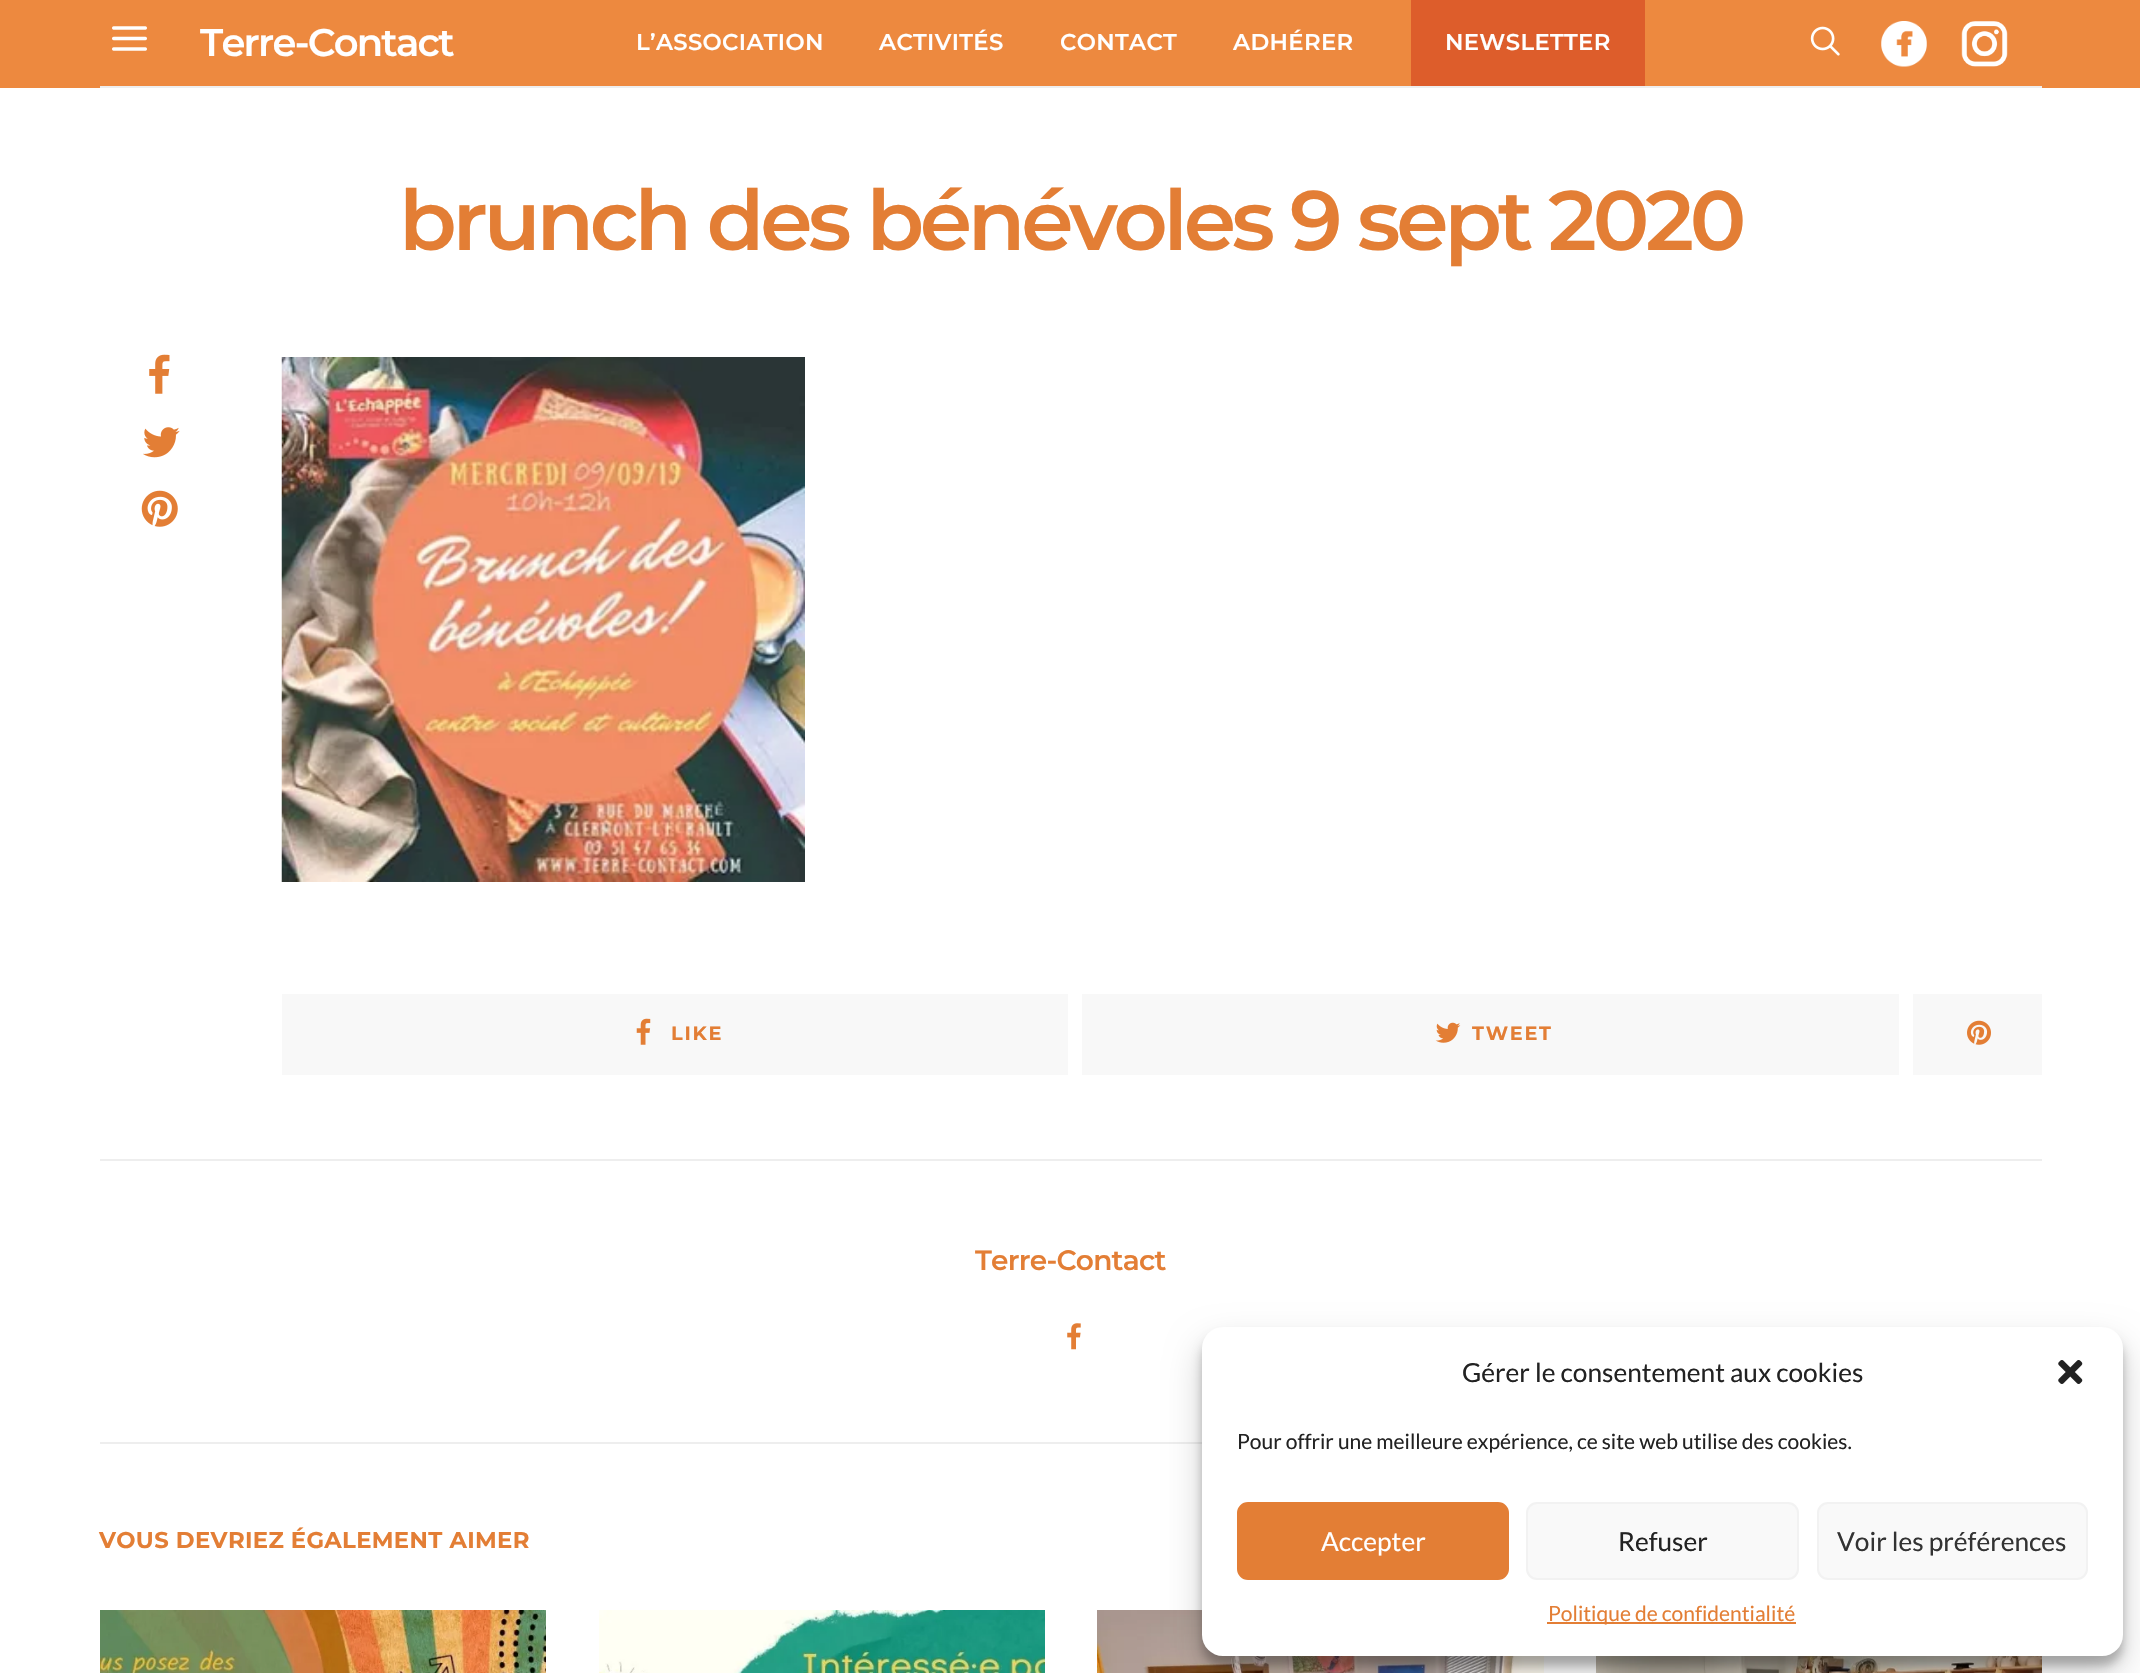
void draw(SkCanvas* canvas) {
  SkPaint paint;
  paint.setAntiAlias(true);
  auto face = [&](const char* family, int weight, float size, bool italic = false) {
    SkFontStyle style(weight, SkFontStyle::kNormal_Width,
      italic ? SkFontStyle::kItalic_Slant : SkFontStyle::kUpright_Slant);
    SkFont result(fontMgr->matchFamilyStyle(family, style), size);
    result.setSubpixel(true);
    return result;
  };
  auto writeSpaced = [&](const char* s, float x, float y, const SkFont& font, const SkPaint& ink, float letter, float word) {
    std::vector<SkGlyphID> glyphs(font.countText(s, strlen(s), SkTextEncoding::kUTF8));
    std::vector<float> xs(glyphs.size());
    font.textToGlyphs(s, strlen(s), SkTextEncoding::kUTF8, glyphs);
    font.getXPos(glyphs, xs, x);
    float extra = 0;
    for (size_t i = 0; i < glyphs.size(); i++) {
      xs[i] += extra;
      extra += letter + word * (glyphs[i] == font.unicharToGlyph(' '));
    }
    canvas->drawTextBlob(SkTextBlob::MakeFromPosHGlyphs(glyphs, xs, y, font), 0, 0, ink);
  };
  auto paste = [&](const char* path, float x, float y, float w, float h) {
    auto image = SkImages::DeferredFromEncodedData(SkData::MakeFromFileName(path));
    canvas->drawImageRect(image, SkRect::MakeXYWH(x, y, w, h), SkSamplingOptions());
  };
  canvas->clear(0xffffffff);
  paint.setColor(0xffed893f);
  canvas->drawRect(SkRect::MakeXYWH(0, 0, 2140, 88), paint);
  paint.setColor(0xffeeeeee);
  canvas->drawRect(SkRect::MakeXYWH(100, 86, 1942, 2), paint);
  paste("img/1.png", 112, 26, 35, 25);
  paint.setColor(0xffdd5d2b);
  canvas->drawRect(SkRect::MakeXYWH(1411, 0, 234, 86), paint);
  paste("img/2.png", 1810, 26, 30, 30);
  paste("img/3.png", 1881, 21, 46, 46);
  paste("img/4.png", 1961, 21, 47, 46);
  paste("img/5.png", 149, 354, 21, 40);
  paste("img/6.png", 143, 427, 37, 31);
  paste("img/7.png", 141, 490, 37, 37);
  paste("img/8.png", 281, 357, 524, 525);
  paint.setColor(0xfff8f8f8);
  canvas->drawRect(SkRect::MakeXYWH(282, 994, 786, 81), paint);
  paste("img/9.png", 636, 1018, 15, 27);
  canvas->drawRect(SkRect::MakeXYWH(1082, 994, 817, 81), paint);
  paste("img/10.png", 1435, 1022, 26, 21);
  canvas->drawRect(SkRect::MakeXYWH(1913, 994, 129, 81), paint);
  paste("img/11.png", 1967, 1020, 24, 25);
  paint.setColor(0xffeeeeee);
  canvas->drawRect(SkRect::MakeXYWH(100, 1159, 1942, 2), paint);
  paste("img/12.png", 1067, 1323, 14, 27);
  canvas->drawRect(SkRect::MakeXYWH(100, 1442, 1102, 2), paint);
  paste("img/13.png", 100, 1610, 446, 63);
  paste("img/14.png", 599, 1610, 446, 63);
  paste("img/15.png", 1097, 1610, 447, 63);
  paste("img/16.png", 1596, 1656, 446, 17);
  paint.setColor(0x3b000000);
  paint.setMaskFilter(SkMaskFilter::MakeBlur(kNormal_SkBlurStyle, 5));
  canvas->drawRoundRect(SkRect::MakeXYWH(1202, 1337, 921, 329), 21, 21, paint);
  paint.setMaskFilter(nullptr);
  paint.setColor(0x30000000);
  paint.setMaskFilter(SkMaskFilter::MakeBlur(kNormal_SkBlurStyle, 17.5f));
  canvas->drawRoundRect(SkRect::MakeXYWH(1202, 1344, 921, 329), 21, 21, paint);
  paint.setMaskFilter(nullptr);
  paint.setColor(0xffffffff);
  canvas->drawRoundRect(SkRect::MakeXYWH(1202, 1327, 921, 329), 21, 21, paint);
  paste("img/17.png", 2058, 1360, 25, 24);
  paint.setColor(0xffe37e35);
  canvas->drawRoundRect(SkRect::MakeXYWH(1238, 1503, 270, 76), 10, 10, paint);
  paint.setStroke(true);
  paint.setStrokeWidth(2);
  canvas->drawRoundRect(SkRect::MakeXYWH(1238, 1503, 270, 76), 10, 10, paint);
  paint.setStroke(false);
  paint.setColor(0xfff9f9f9);
  canvas->drawRoundRect(SkRect::MakeXYWH(1527, 1503, 271, 76), 10, 10, paint);
  paint.setStroke(true);
  paint.setColor(0xfff2f2f2);
  canvas->drawRoundRect(SkRect::MakeXYWH(1527, 1503, 271, 76), 10, 10, paint);
  paint.setStroke(false);
  paint.setColor(0xfff9f9f9);
  canvas->drawRoundRect(SkRect::MakeXYWH(1818, 1503, 269, 76), 10, 10, paint);
  paint.setStroke(true);
  paint.setColor(0xfff2f2f2);
  canvas->drawRoundRect(SkRect::MakeXYWH(1818, 1503, 269, 76), 10, 10, paint);
  paint.setStroke(false);
  paint.setColor(0xffe37e35);
  canvas->drawRect(SkRect::MakeXYWH(1547, 1622, 249, 2), paint);
  auto f0 = face("Montserrat", 600, 38.5f);
  paint.setColor(0xffffffff);
  writeSpaced("Terre-Contact", 200, 56, f0, paint, -1.75f, 0);
  auto f1 = face("Montserrat", 600, 22.75f);
  {
    const struct { const char* s; float x, y; } items[] = {
      {"L’ASSOCIATION", 636, 50},
      {"ACTIVITÉS", 879, 50},
      {"CONTACT", 1060, 50},
      {"ADHÉRER", 1233, 50},
      {"NEWSLETTER", 1445, 50},
    };
    for (auto [s, x, y] : items) {
      writeSpaced(s, x, y, f1, paint, 0.35f, 0);
    }
  }
  auto f2 = face("Montserrat", 600, 84);
  paint.setColor(0xffe37e35);
  writeSpaced("brunch des bénévoles 9 sept 2020", 399, 250, f2, paint, -4.2f, 0);
  auto f3 = face("Montserrat", 700, 19.25f);
  writeSpaced("LIKE", 671, 1040, f3, paint, 1.75f, 0);
  writeSpaced("TWEET", 1472, 1040, f3, paint, 1.75f, 0);
  auto f4 = face("Montserrat", 600, 28);
  writeSpaced("Terre-Contact", 975, 1270, f4, paint, -0.75f, 0);
  auto f5 = face("Montserrat", 700, 22.75f);
  writeSpaced("VOUS DEVRIEZ ÉGALEMENT AIMER", 99, 1548, f5, paint, 0.35f, 0);
  auto f6 = face("Lato", 400, 26.25f);
  paint.setColor(0xff222222);
  canvas->drawString("Gérer le consentement aux cookies", 1462, 1382, f6, paint);
  auto f7 = face("Lato", 400, 21);
  canvas->drawString("Pour offrir une meilleure expérience, ce site web utilise des cookies.", 1237, 1449, f7, paint);
  paint.setColor(0xffffffff);
  canvas->drawString("Accepter", 1321, 1551, f6, paint);
  paint.setColor(0xff222222);
  canvas->drawString("Refuser", 1618, 1551, f6, paint);
  paint.setColor(0xff333333);
  canvas->drawString("Voir les préférences", 1837, 1551, f6, paint);
  paint.setColor(0xffe37e35);
  canvas->drawString("Politique de confidentialité", 1548, 1621, f7, paint);
}
